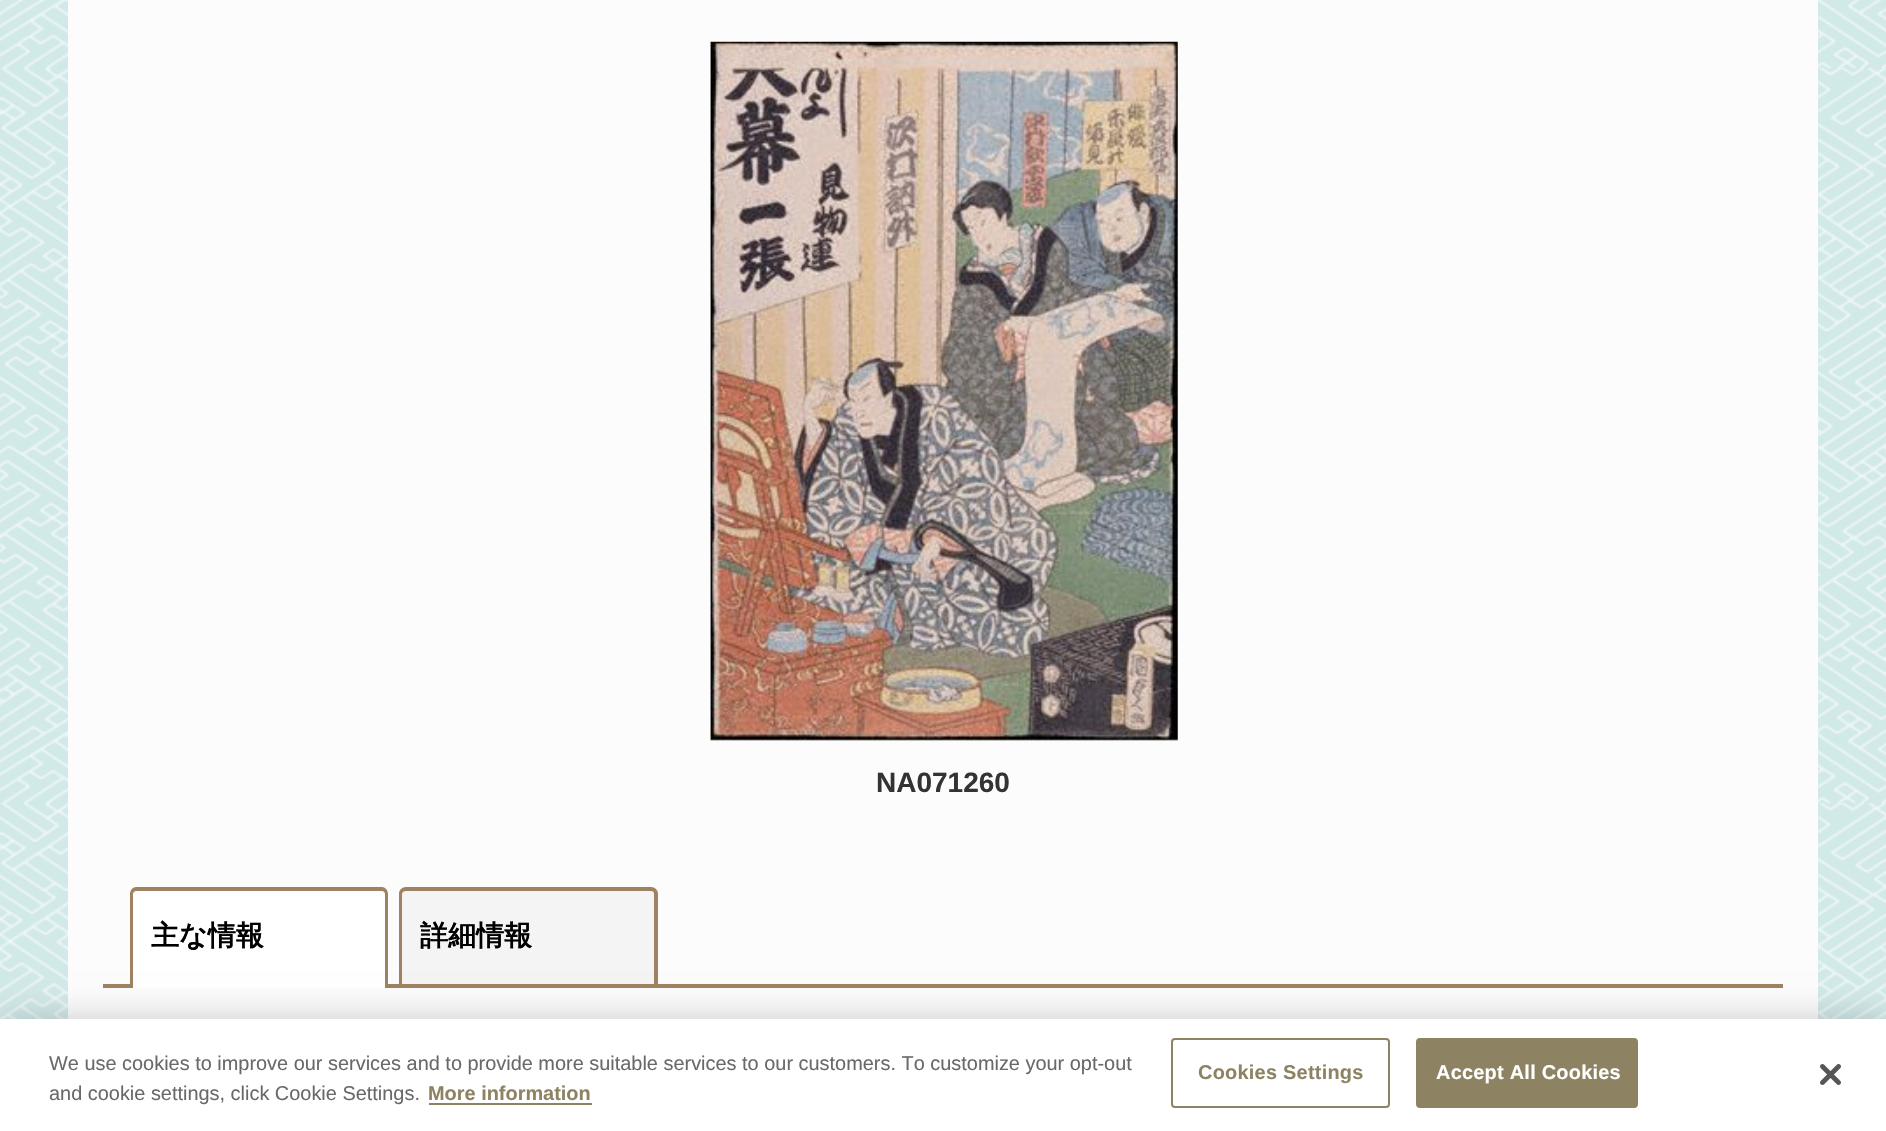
void draw(SkCanvas* canvas) {
  SkPaint paint;
  paint.setAntiAlias(true);
  auto face = [&](const char* family, int weight, float size, bool italic = false) {
    SkFontStyle style(weight, SkFontStyle::kNormal_Width,
      italic ? SkFontStyle::kItalic_Slant : SkFontStyle::kUpright_Slant);
    SkFont result(fontMgr->matchFamilyStyle(family, style), size);
    result.setSubpixel(true);
    return result;
  };
  auto writeSpaced = [&](const char* s, float x, float y, const SkFont& font, const SkPaint& ink, float letter, float word) {
    std::vector<SkGlyphID> glyphs(font.countText(s, strlen(s), SkTextEncoding::kUTF8));
    std::vector<float> xs(glyphs.size());
    font.textToGlyphs(s, strlen(s), SkTextEncoding::kUTF8, glyphs);
    font.getXPos(glyphs, xs, x);
    float extra = 0;
    for (size_t i = 0; i < glyphs.size(); i++) {
      xs[i] += extra;
      extra += letter + word * (glyphs[i] == font.unicharToGlyph(' '));
    }
    canvas->drawTextBlob(SkTextBlob::MakeFromPosHGlyphs(glyphs, xs, y, font), 0, 0, ink);
  };
  auto paste = [&](const char* path, float x, float y, float w, float h) {
    auto image = SkImages::DeferredFromEncodedData(SkData::MakeFromFileName(path));
    canvas->drawImageRect(image, SkRect::MakeXYWH(x, y, w, h), SkSamplingOptions());
  };
  auto shape = [&](const char* data, bool evenOdd = false) {
    SkPath result = *SkParsePath::FromSVGString(data);
    if (evenOdd) result.setFillType(SkPathFillType::kEvenOdd);
    return result;
  };
  canvas->clear(0xffffffff);
  paste("img/1.png", 0, 0, 1886, 1019);
  paint.setColor(0xfffcfcfc);
  canvas->drawRect(SkRect::MakeXYWH(68, 0, 1750, 1019), paint);
  paste("img/2.png", 710, 41, 468, 700);
  paint.setColor(0xff9f8261);
  canvas->drawRect(SkRect::MakeXYWH(103, 984, 1680, 4), paint);
  paint.setColor(0xffffffff);
  canvas->drawPath(shape("M137 887H382C386 887 389 890 389 894V984H130V894C130 890 133 887 137 887Z"), paint);
  paint.setColor(0xff9f8261);
  canvas->drawPath(shape("M136 887H382C385 887 388 890 388 894V984H130V894C130 890 133 887 136 887ZM136 891H382C383 891 385 892 385 894V984H133V894C133 892 135 891 136 891Z", true), paint);
  paint.setColor(0xffffffff);
  canvas->drawRect(SkRect::MakeXYWH(133, 984, 252, 4), paint);
  paint.setColor(0xfff4f4f4);
  canvas->drawPath(shape("M406 887H651C655 887 658 890 658 894V984H399V894C399 890 402 887 406 887Z"), paint);
  paint.setColor(0xff9f8261);
  canvas->drawPath(shape("M406 887H651C655 887 658 890 658 894V984H399V894C399 890 402 887 406 887ZM406 891H651C653 891 654 892 654 894V984H402V894C402 892 404 891 406 891Z", true), paint);
  paint.setColor(0x33000000);
  paint.setMaskFilter(SkMaskFilter::MakeBlur(kNormal_SkBlurStyle, 16));
  canvas->drawRect(SkRect::MakeXYWH(0, 1019, 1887, 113), paint);
  paint.setMaskFilter(nullptr);
  paint.setColor(0xffffffff);
  canvas->drawRect(SkRect::MakeXYWH(0, 1019, 1886, 112), paint);
  paint.setColor(0xff8d8363);
  canvas->drawRect(SkRect::MakeXYWH(429, 1103, 163, 2), paint);
  paint.setStroke(true);
  paint.setStrokeWidth(2);
  canvas->drawRoundRect(SkRect::MakeXYWH(1172, 1039, 217, 68), 3, 3, paint);
  paint.setStroke(false);
  canvas->drawRoundRect(SkRect::MakeXYWH(1417, 1039, 220, 68), 3, 3, paint);
  paint.setStroke(true);
  canvas->drawRoundRect(SkRect::MakeXYWH(1417, 1039, 220, 68), 3, 3, paint);
  paste("img/3.png", 1820, 1064, 21, 21);
  auto f0 = face("Liberation Sans", 700, 28);
  paint.setStroke(false);
  paint.setColor(0xff333333);
  canvas->drawString("NA071260", 876, 792, f0, paint);
  auto f1 = face("WenQuanYi Zen Hei", 700, 28);
  paint.setColor(0xff000000);
  canvas->drawString("主な情報", 151, 945, f1, paint);
  canvas->drawString("詳細情報", 420, 945, f1, paint);
  auto f2 = face("Liberation Sans", 400, 19.92f);
  paint.setColor(0xff696969);
  canvas->drawString("We use cookies to improve our services and to provide more suitable services to our customers. To customize your opt-out", 49, 1070, f2, paint);
  canvas->drawString("and cookie settings, click Cookie Settings.", 49, 1100, f2, paint);
  auto f3 = face("Liberation Sans", 700, 19.92f);
  paint.setColor(0xff8d8363);
  canvas->drawString("More information", 428, 1100, f3, paint);
  writeSpaced("Cookies Settings", 1198, 1079, f3, paint, 0.25f, 0);
  paint.setColor(0xffffffff);
  writeSpaced("Accept All Cookies", 1436, 1079, f3, paint, 0.25f, 0);
}
